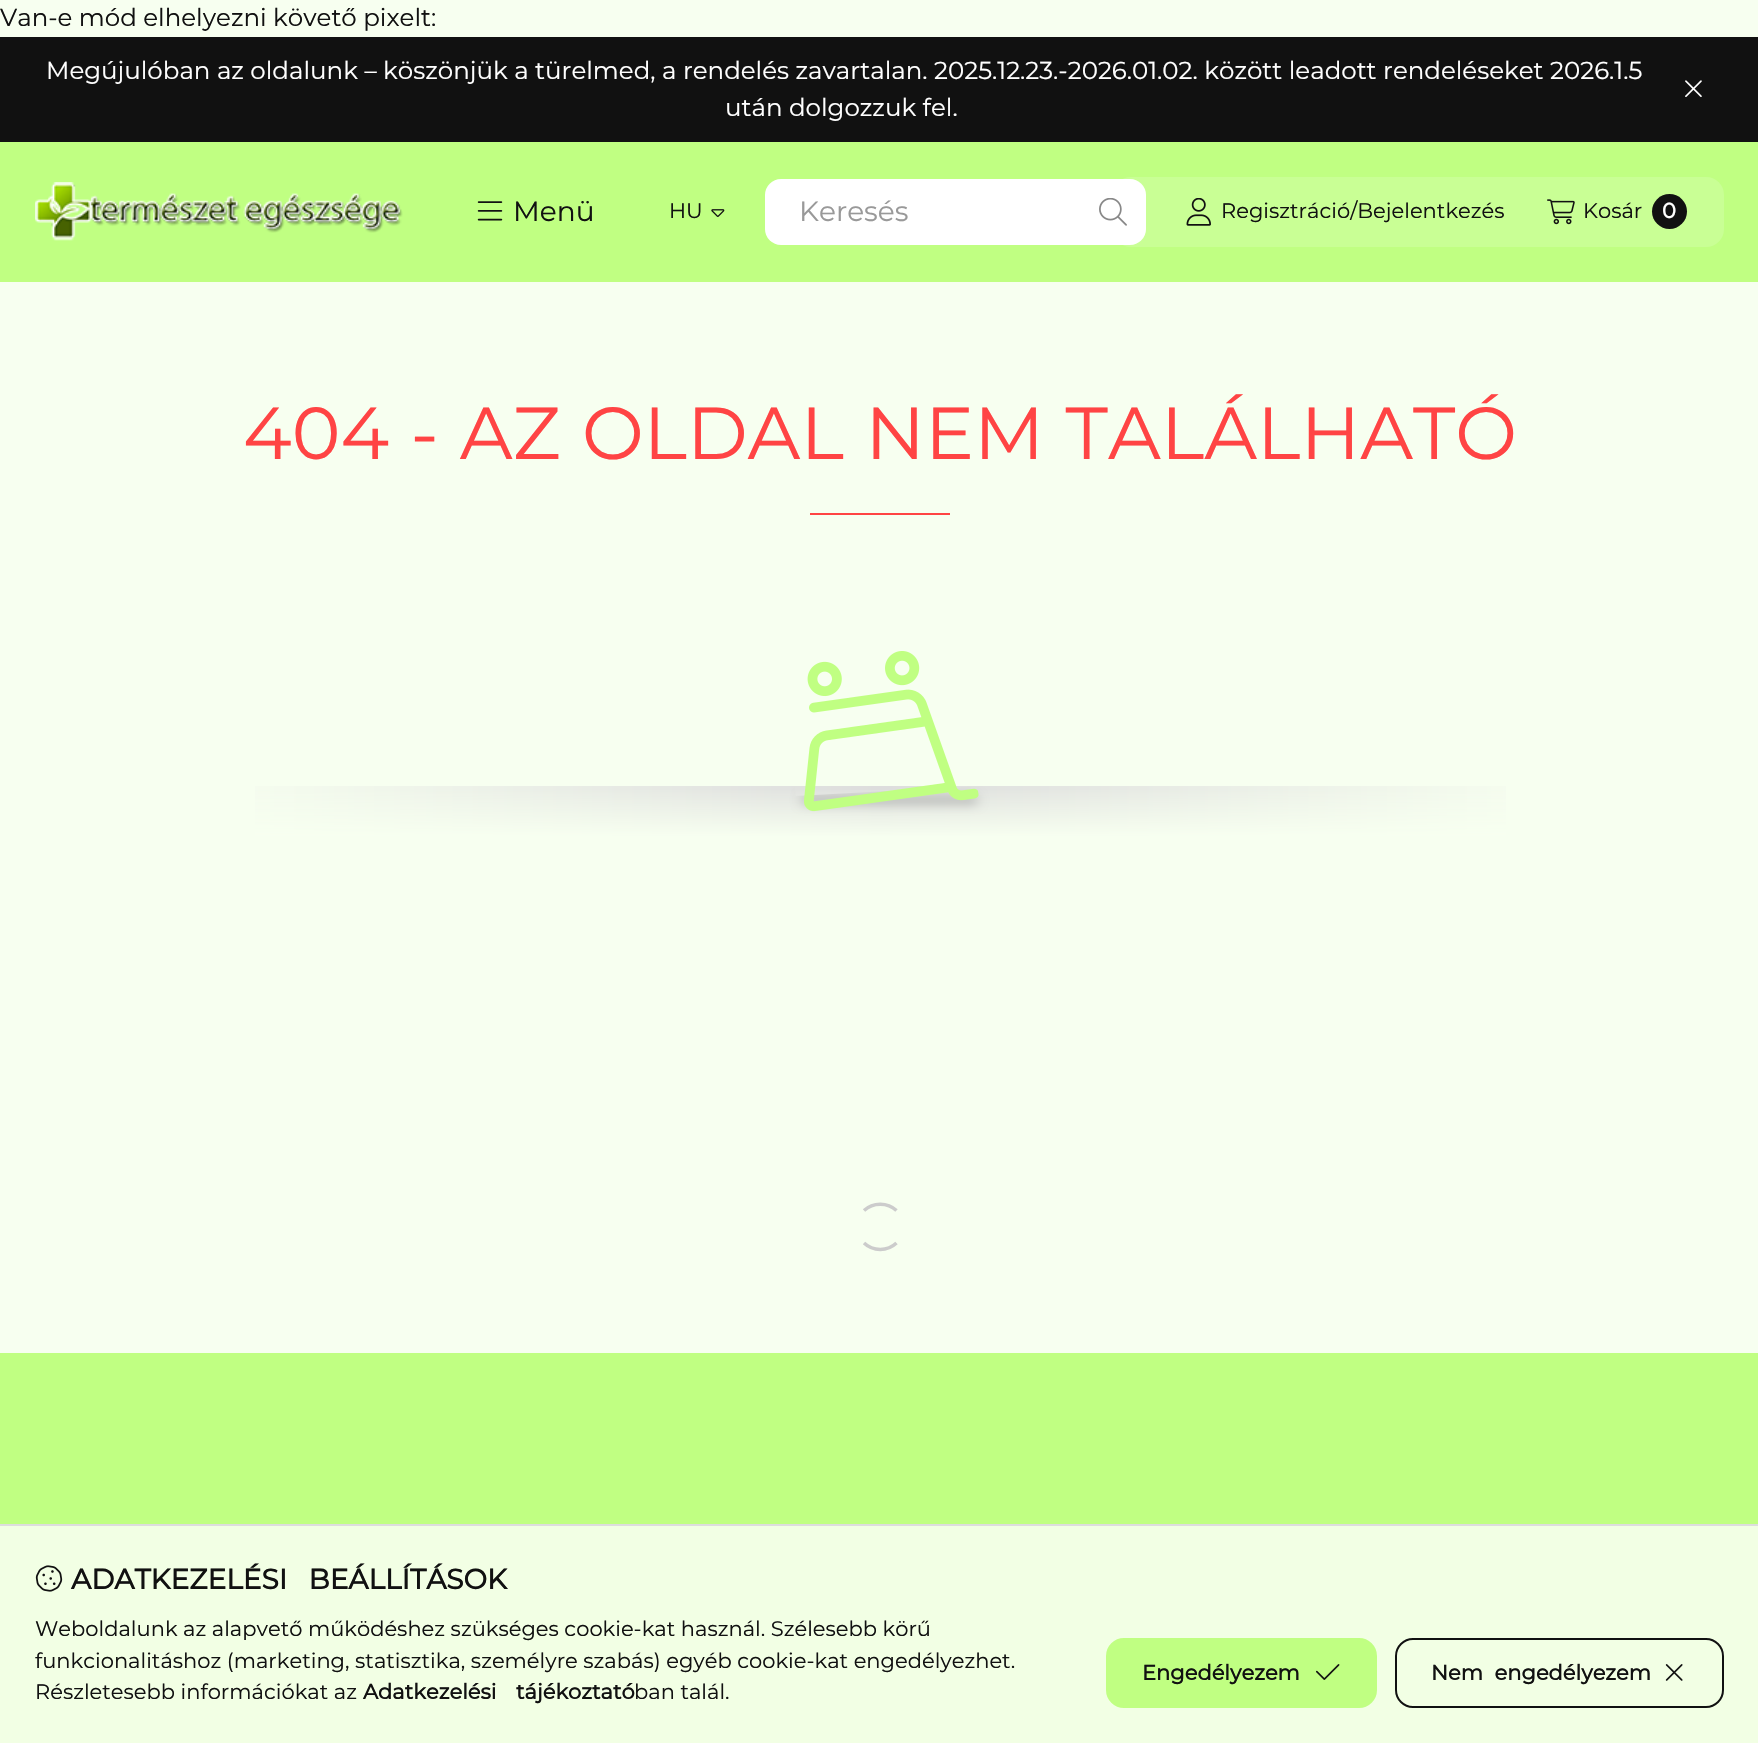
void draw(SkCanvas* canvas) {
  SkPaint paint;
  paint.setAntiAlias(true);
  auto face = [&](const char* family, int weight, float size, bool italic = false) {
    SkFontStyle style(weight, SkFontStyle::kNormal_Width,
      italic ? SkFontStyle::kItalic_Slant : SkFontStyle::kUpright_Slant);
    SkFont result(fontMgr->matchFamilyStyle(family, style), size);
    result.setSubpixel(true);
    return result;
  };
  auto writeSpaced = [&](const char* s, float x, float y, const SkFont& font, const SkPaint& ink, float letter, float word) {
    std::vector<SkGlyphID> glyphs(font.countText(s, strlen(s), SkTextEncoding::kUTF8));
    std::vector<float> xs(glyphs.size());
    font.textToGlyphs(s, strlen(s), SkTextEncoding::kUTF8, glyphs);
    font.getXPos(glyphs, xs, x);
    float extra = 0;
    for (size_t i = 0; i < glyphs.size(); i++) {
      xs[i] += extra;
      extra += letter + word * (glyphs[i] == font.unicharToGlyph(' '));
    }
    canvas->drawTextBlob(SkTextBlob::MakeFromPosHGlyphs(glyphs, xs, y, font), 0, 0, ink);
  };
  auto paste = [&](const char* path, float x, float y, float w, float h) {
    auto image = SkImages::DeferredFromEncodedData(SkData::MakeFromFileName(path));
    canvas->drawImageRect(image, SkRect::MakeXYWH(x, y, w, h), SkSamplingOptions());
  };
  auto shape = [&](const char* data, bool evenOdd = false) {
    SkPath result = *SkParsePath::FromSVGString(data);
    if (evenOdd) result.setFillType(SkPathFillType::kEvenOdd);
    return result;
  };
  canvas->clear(0xfff7fff0);
  paint.setColor(0xff111111);
  canvas->drawRect(SkRect::MakeXYWH(0, 37, 1758, 105), paint);
  paste("img/1.png", 1685, 80, 17, 17);
  paint.setColor(0xffc0ff82);
  canvas->drawRect(SkRect::MakeXYWH(0, 142, 1758, 140), paint);
  paste("img/2.png", 35, 182, 368, 59);
  paste("img/3.png", 477, 201, 26, 20);
  paste("img/4.png", 711, 209, 14, 8);
  paint.setColor(0xffc9ff95);
  canvas->drawRoundRect(SkRect::MakeXYWH(1113, 177, 611, 70), 18, 18, paint);
  paint.setColor(0xffffffff);
  canvas->drawRoundRect(SkRect::MakeXYWH(765, 179, 381, 66), 16, 16, paint);
  paste("img/5.png", 1099, 198, 28, 28);
  paste("img/6.png", 1186, 198, 25, 28);
  paste("img/7.png", 1547, 199, 28, 26);
  paint.setColor(0xff111111);
  canvas->drawCircle(1669.5f, 211.5f, 17.5f, paint);
  paint.setColor(0xffff4444);
  canvas->drawRect(SkRect::MakeXYWH(810, 513, 140, 2), paint);
  {
    const SkColor colors[] = {0xfff7fff0, 0xffdddddd, 0xfff7fff0};
    const float stops[] = {0.1f, 0.5f, 0.9f};
    const SkPoint ends[] = {{36, 812}, {1725, 812}};
    paint.setShader(SkGradientShader::MakeLinear(ends, colors, stops, 3, SkTileMode::kClamp));
    paint.setAlpha(255);
  }
  canvas->drawRect(SkRect::MakeXYWH(255, 786, 1251, 52), paint);
  {
    const SkColor colors[] = {0xfff7fff0, 0x00f7fff0};
    const float stops[] = {0, 1};
    const SkPoint ends[] = {{880, 838}, {880, 786}};
    paint.setShader(SkGradientShader::MakeLinear(ends, colors, stops, 2, SkTileMode::kClamp));
    paint.setAlpha(255);
  }
  canvas->drawRect(SkRect::MakeXYWH(255, 790, 1251, 48), paint);
  canvas->save();
  canvas->clipPath(shape("M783 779H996V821H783ZM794.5 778.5L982.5 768.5L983.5 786L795.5 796Z", true), true);
  paint.setShader(nullptr);
  paint.setColor(0xff808080);
  paint.setMaskFilter(SkMaskFilter::MakeBlur(kNormal_SkBlurStyle, 6));
  canvas->drawRect(SkRect::MakeXYWH(802, 798, 175, 4), paint);
  paint.setMaskFilter(nullptr);
  canvas->restore();
  paste("img/8.png", 804, 651, 175, 161);
  paint.setStroke(true);
  paint.setStrokeWidth(3.5f);
  paint.setColor(0xffcccccc);
  canvas->drawPath(shape("M864 1210.5C873 1202 887.5 1202 896.5 1210.5M896.5 1243C887.5 1251.5 873 1251.5 864 1243"), paint);
  paint.setStroke(false);
  {
    const struct { float x, y, w, h; SkColor color; } items[] = {
      {0, 1353, 1758, 171, 0xffc0ff82},
      {0, 1526, 1758, 217, 0xfff2ffe4},
      {0, 1524, 1758, 2, 0xffdddddd},
    };
    for (auto [x, y, w, h, color] : items) {
      paint.setColor(color);
      canvas->drawRect(SkRect::MakeXYWH(x, y, w, h), paint);
    }
  }
  paste("img/9.png", 35, 1565, 28, 27);
  paint.setColor(0xffc0ff82);
  canvas->drawRoundRect(SkRect::MakeXYWH(1107, 1639, 269, 68), 17, 17, paint);
  paint.setStroke(true);
  paint.setStrokeWidth(2);
  canvas->drawRoundRect(SkRect::MakeXYWH(1107, 1639, 269, 68), 17, 17, paint);
  paste("img/10.png", 1316, 1664, 24, 16);
  paint.setColor(0xff111111);
  canvas->drawRoundRect(SkRect::MakeXYWH(1396, 1639, 327, 68), 17, 17, paint);
  paste("img/11.png", 1665, 1664, 18, 17);
  auto f0 = face("Montserrat", 400, 24.5f);
  paint.setStroke(false);
  canvas->drawString("Van-e mód elhelyezni követő pixelt:", 0, 26, f0, paint);
  paint.setColor(0xffffffff);
  canvas->drawString("Megújulóban az oldalunk – köszönjük a türelmed, a rendelés zavartalan. 2025.12.23.-2026.01.02. között leadott rendeléseket 2026.1.5", 46, 79, f0, paint);
  canvas->drawString("után dolgozzuk fel.", 725, 116, f0, paint);
  auto f1 = face("Montserrat", 400, 28);
  paint.setColor(0xff111111);
  canvas->drawString("Menü", 513, 221, f1, paint);
  auto f2 = face("Montserrat", 400, 21);
  canvas->drawString("HU", 669, 218, f2, paint);
  paint.setColor(0xff999999);
  canvas->drawString("Keresés", 799, 221, f1, paint);
  paint.setColor(0xff111111);
  canvas->drawString("Regisztráció/Bejelentkezés", 1221, 218, f2, paint);
  canvas->drawString("Kosár", 1583, 218, f2, paint);
  auto f3 = face("Montserrat", 700, 21);
  paint.setColor(0xffffffff);
  canvas->drawString("0", 1662, 218, f3, paint);
  auto f4 = face("Montserrat", 400, 73.5f);
  paint.setColor(0xffff4444);
  writeSpaced("404 - AZ OLDAL NEM TALÁLHATÓ", 243, 459, f4, paint, 0, 2);
  auto f5 = face("Montserrat", 700, 28);
  paint.setColor(0xff111111);
  writeSpaced("ADATKEZELÉSI BEÁLLÍTÁSOK", 71, 1589, f5, paint, 0, 14);
  {
    const struct { const char* s; float x, y; } items[] = {
      {"Weboldalunk az alapvető működéshez szükséges cookie-kat használ. Szélesebb körű", 35, 1636},
      {"funkcionalitáshoz (marketing, statisztika, személyre szabás) egyéb cookie-kat engedélyezhet.", 35, 1668},
      {"Részletesebb információkat az", 35, 1699},
    };
    for (auto [s, x, y] : items) {
      canvas->drawString(s, x, y, f2, paint);
    }
  }
  writeSpaced("Adatkezelési tájékoztató", 363, 1699, f3, paint, 0, 14);
  canvas->drawString("ban talál.", 634, 1699, f2, paint);
  canvas->drawString("Engedélyezem", 1142, 1680, f3, paint);
  writeSpaced("Nem engedélyezem", 1431, 1680, f3, paint, 0, 6);
}
